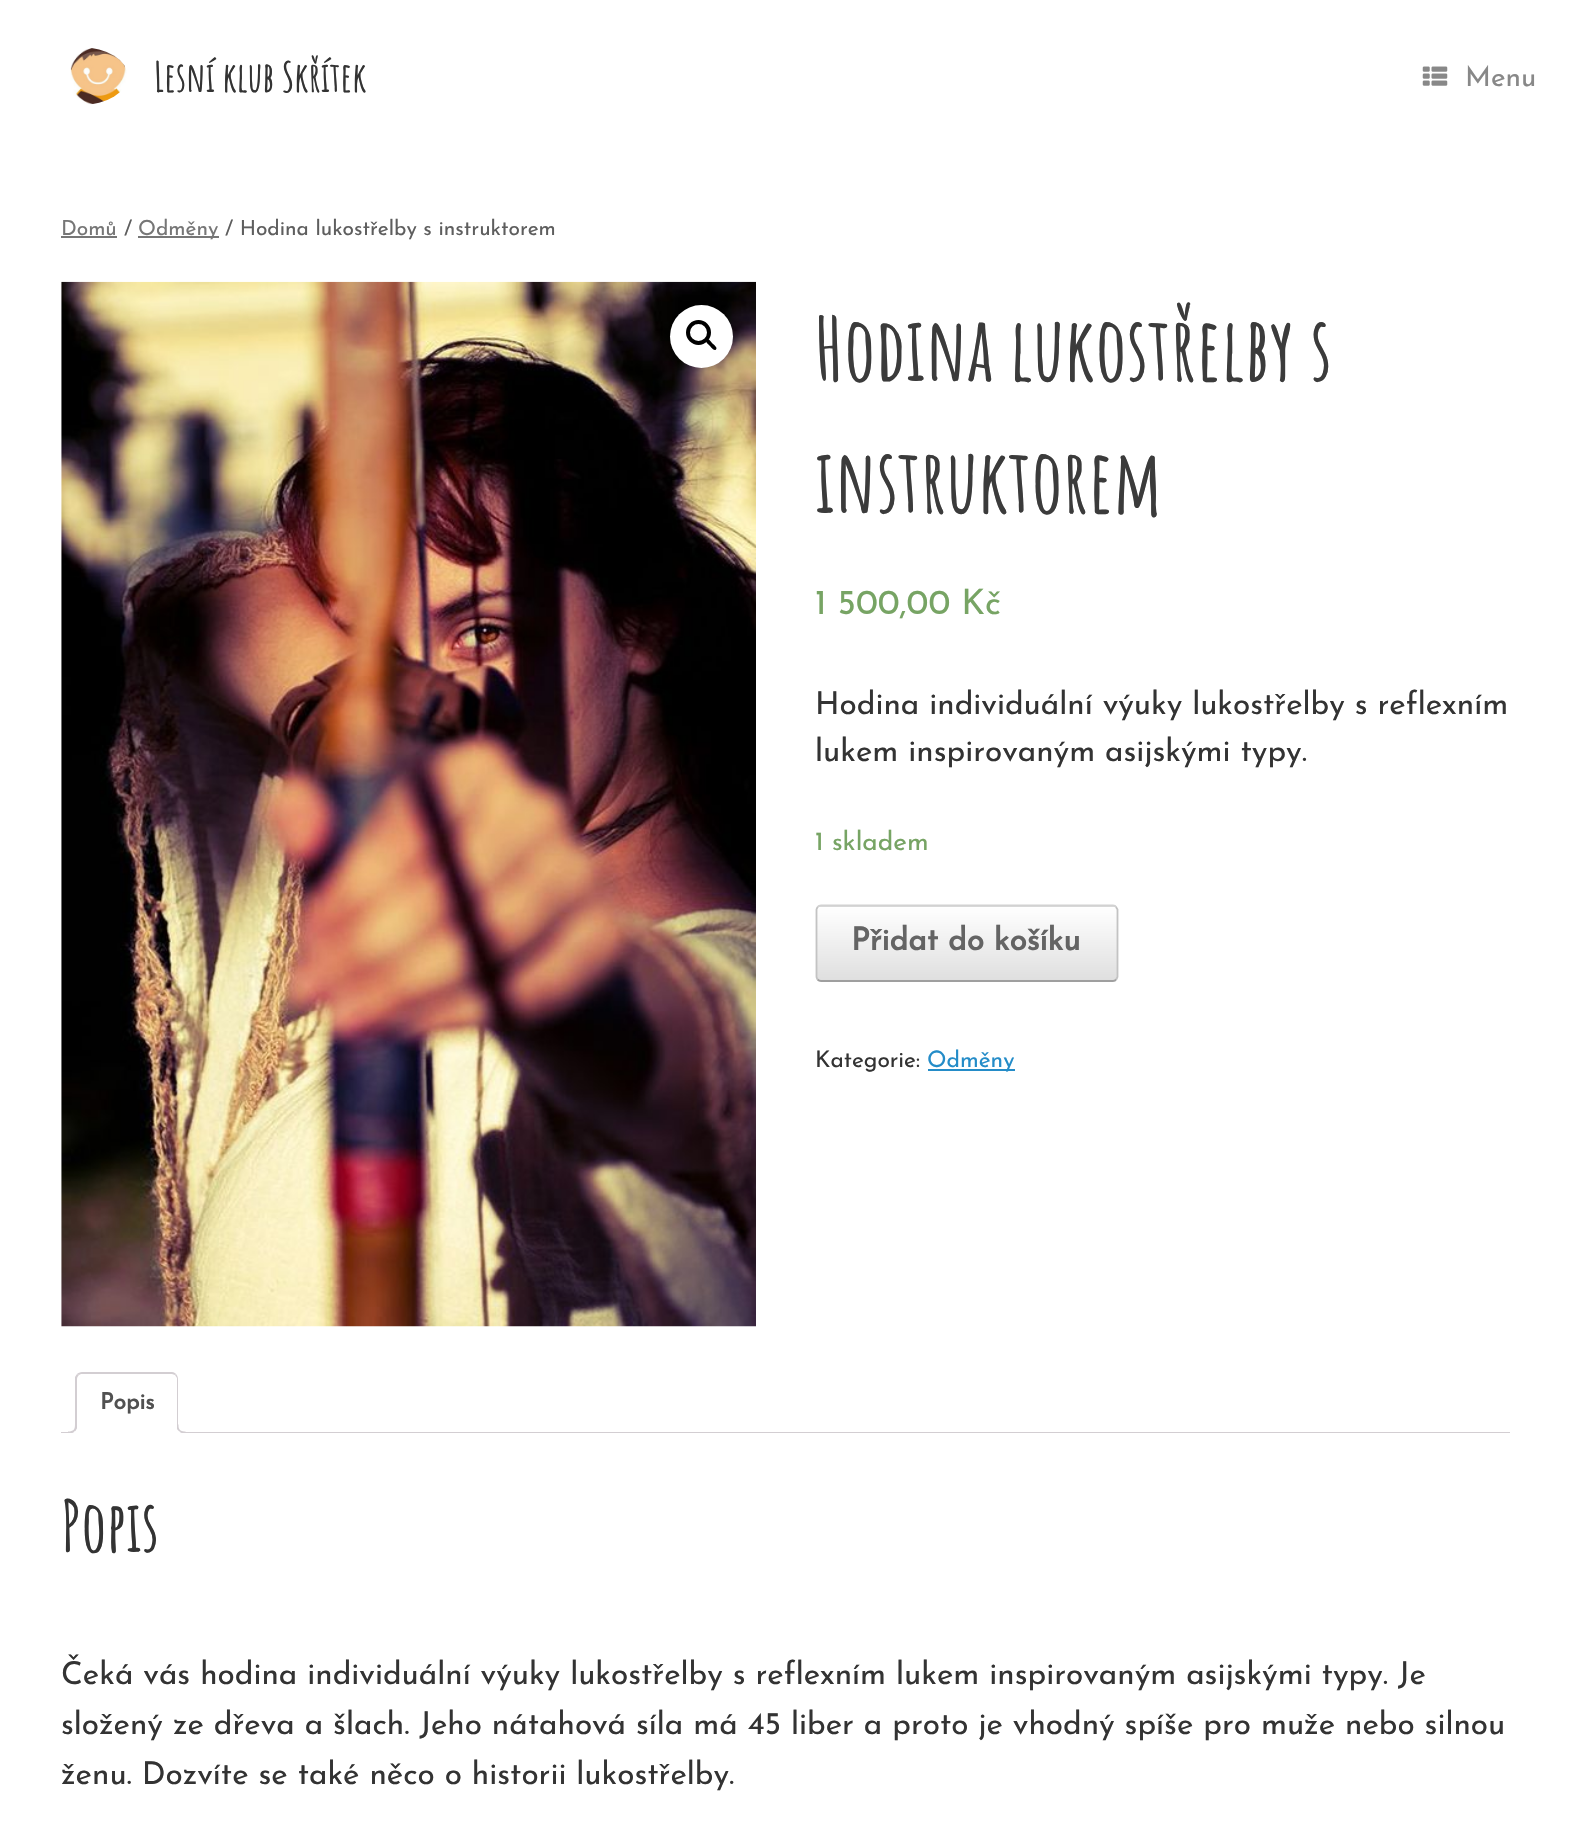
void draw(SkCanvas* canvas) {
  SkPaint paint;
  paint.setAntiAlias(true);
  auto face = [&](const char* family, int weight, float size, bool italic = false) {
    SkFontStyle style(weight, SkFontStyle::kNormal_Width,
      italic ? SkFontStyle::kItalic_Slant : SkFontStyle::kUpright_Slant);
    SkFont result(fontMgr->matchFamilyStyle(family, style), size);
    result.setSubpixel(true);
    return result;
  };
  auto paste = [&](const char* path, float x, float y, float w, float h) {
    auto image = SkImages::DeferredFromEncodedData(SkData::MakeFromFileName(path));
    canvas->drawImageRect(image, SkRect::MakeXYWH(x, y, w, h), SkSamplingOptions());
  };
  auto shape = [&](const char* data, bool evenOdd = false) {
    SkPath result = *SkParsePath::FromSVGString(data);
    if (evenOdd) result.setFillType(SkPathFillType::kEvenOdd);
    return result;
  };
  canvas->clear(0xffffffff);
  paste("img/1.png", 70, 48, 57, 57);
  paste("img/2.png", 1422, 66, 26, 20);
  paint.setColor(0xff767676);
  canvas->drawRect(SkRect::MakeXYWH(61, 236, 56, 2), paint);
  canvas->drawRect(SkRect::MakeXYWH(138, 236, 81, 2), paint);
  paste("img/3.png", 61, 281, 695, 1046);
  paint.setColor(0xffffffff);
  canvas->drawCircle(701.5f, 336.5f, 31.5f, paint);
  paint.setStroke(true);
  paint.setStrokeWidth(4);
  paint.setColor(0xff000000);
  canvas->drawCircle(698.5f, 332.5f, 10.5f, paint);
  paint.setStroke(false);
  canvas->drawPath(shape("M706.5 339.5C708.5 337.5 711.5 342.5 712.5 343.5C713.5 344.5 718 347.5 716 349.5C714 351.5 711 347 710 346C709 345 704.5 341.5 706.5 339.5Z"), paint);
  canvas->save();
  canvas->clipPath(shape("M821 905H1113C1116 905 1118 907 1118 910V977C1118 980 1116 982 1113 982H821C818 982 816 980 816 977V910C816 907 818 905 821 905Z"), true);
  {
    const SkColor colors[] = {0xffdfdfdf, 0xffffffff};
    const float stops[] = {0, 1};
    const SkPoint ends[] = {{817, 907}, {817, 833}};
    paint.setShader(SkGradientShader::MakeLinear(ends, colors, stops, 2, SkTileMode::kClamp));
    paint.setAlpha(255);
  }
  canvas->drawRect(SkRect::MakeXYWH(816, 905, 302, 2), paint);
  {
    const SkColor colors[] = {0xffdfdfdf, 0xffffffff};
    const float stops[] = {0, 1};
    const SkPoint ends[] = {{817, 980}, {817, 907}};
    paint.setShader(SkGradientShader::MakeLinear(ends, colors, stops, 2, SkTileMode::kClamp));
    paint.setAlpha(255);
  }
  canvas->drawRect(SkRect::MakeXYWH(816, 907, 302, 73), paint);
  canvas->restore();
  paint.setStroke(true);
  paint.setStrokeWidth(1.8f);
  paint.setShader(nullptr);
  paint.setColor(0xffd2d2d2);
  canvas->drawPath(shape("M817.5 907C818.5 906 819.5 905.5 821 905.5H1113C1114 905.5 1115.5 906 1116 907"), paint);
  paint.setColor(0xffc3c3c3);
  canvas->drawPath(shape("M1116 907L1117.5 909.5V977L1116 979.5"), paint);
  paint.setColor(0xff9f9f9f);
  canvas->drawPath(shape("M1116 979.5C1115.5 980.5 1114 981 1113 981H821C819.5 981 818.5 980.5 817.5 979.5"), paint);
  paint.setColor(0xffc3c3c3);
  canvas->drawPath(shape("M817.5 979.5L816.5 977V909.5L817.5 907"), paint);
  paint.setStroke(false);
  paint.setColor(0xff248cc8);
  canvas->drawRect(SkRect::MakeXYWH(928, 1069, 87, 2), paint);
  paint.setColor(0xffd3ced2);
  canvas->drawRect(SkRect::MakeXYWH(61, 1432, 1449, 1), paint);
  paint.setColor(0xffffffff);
  canvas->drawPath(shape("M82 1372H172C176 1372 179 1375 179 1379V1433H75V1379C75 1375 78 1372 82 1372Z"), paint);
  paint.setColor(0xffd3ced2);
  canvas->drawPath(shape("M82 1372C80 1372 78 1373 77 1374L79 1375L81 1374H172L175 1375L176 1374C175 1373 174 1372 172 1372Z"), paint);
  canvas->drawPath(shape("M176 1374C177 1375 178 1377 178 1379V1433L177 1432V1378L175 1375Z"), paint);
  paint.setColor(0xffffffff);
  canvas->drawPath(shape("M178 1433H76L77 1432H177Z"), paint);
  paint.setColor(0xffd3ced2);
  canvas->drawPath(shape("M75 1377L77 1374L79 1375C78 1376 77 1377 77 1379V1432L75 1433Z"), paint);
  canvas->save();
  canvas->clipRect(SkRect::MakeXYWH(61, 1372, 1449, 61));
  paint.setColor(0xffffffff);
  canvas->drawPath(shape("M72 1433V1437C78.5 1437 81 1434.5 81 1428H77C76 1430.5 74.5 1432.5 72 1433Z"), paint);
  canvas->restore();
  paint.setColor(0xffd3ced2);
  canvas->drawPath(shape("M68 1424.5H77C77 1430.5 74.5 1433 68 1433ZM68 1424.5H75C75 1429.5 73.5 1431.5 68 1431.5Z", true), paint);
  canvas->save();
  canvas->clipRect(SkRect::MakeXYWH(61, 1372, 1449, 61));
  paint.setColor(0xffffffff);
  canvas->drawPath(shape("M173 1428C173 1434.5 175.5 1437 182 1437V1433C179.5 1432.5 177.5 1430.5 177 1428Z"), paint);
  canvas->restore();
  paint.setColor(0xffd3ced2);
  canvas->drawPath(shape("M177 1424.5H185.5V1433C181 1433 177 1431.5 177 1426ZM178.5 1424.5H185.5V1431.5C182 1431.5 178.5 1430.5 178.5 1426Z", true), paint);
  auto f0 = face("Amatic SC", 700, 41);
  paint.setColor(0xff333333);
  canvas->drawString("Lesní klub Skřítek", 154, 92, f0, paint);
  auto f1 = face("Josefin Sans", 100, 28);
  paint.setColor(0xff888888);
  canvas->drawString("Menu", 1465, 86, f1, paint);
  auto f2 = face("Josefin Sans", 100, 20.9f);
  paint.setColor(0xff767676);
  canvas->drawString("Domů", 61, 235, f2, paint);
  paint.setColor(0xff5e5e5e);
  canvas->drawString("/", 124, 235, f2, paint);
  paint.setColor(0xff767676);
  canvas->drawString("Odměny", 138, 235, f2, paint);
  paint.setColor(0xff5e5e5e);
  canvas->drawString("/ Hodina lukostřelby s instruktorem", 225, 235, f2, paint);
  auto f3 = face("Amatic SC", 700, 87.5f);
  paint.setColor(0xff3b3b3b);
  canvas->drawString("Hodina lukostřelby s", 815, 381, f3, paint);
  canvas->drawString("instruktorem", 815, 513, f3, paint);
  auto f4 = face("Josefin Sans", 100, 35);
  paint.setColor(0xff77a464);
  canvas->drawString("1 500,00 Kč", 815, 614, f4, paint);
  auto f5 = face("Josefin Sans", 100, 31.5f);
  paint.setColor(0xff333333);
  canvas->drawString("Hodina individuální výuky lukostřelby s reflexním", 815, 714, f5, paint);
  canvas->drawString("lukem inspirovaným asijskými typy.", 815, 761, f5, paint);
  auto f6 = face("Josefin Sans", 100, 26.25f);
  paint.setColor(0xff77a464);
  canvas->drawString("1 skladem", 815, 850, f6, paint);
  auto f7 = face("Josefin Sans", 700, 31.5f);
  paint.setColor(0xff646464);
  canvas->drawString("Přidat do košíku", 851, 950, f7, paint);
  auto f8 = face("Josefin Sans", 100, 22.75f);
  paint.setColor(0xff333333);
  canvas->drawString("Kategorie:", 815, 1067, f8, paint);
  paint.setColor(0xff248cc8);
  canvas->drawString("Odměny", 927, 1067, f8, paint);
  auto f9 = face("Josefin Sans", 700, 22.75f);
  paint.setColor(0xff515151);
  canvas->drawString("Popis", 100, 1409, f9, paint);
  auto f10 = face("Amatic SC", 700, 70);
  paint.setColor(0xff333333);
  canvas->drawString("Popis", 61, 1552, f10, paint);
  {
    const struct { const char* s; float x, y; } items[] = {
      {"Čeká vás hodina individuální výuky lukostřelby s reflexním lukem inspirovaným asijskými typy. Je", 61, 1684},
      {"složený ze dřeva a šlach. Jeho nátahová síla má 45 liber a proto je vhodný spíše pro muže nebo silnou", 61, 1734},
      {"ženu. Dozvíte se také něco o historii lukostřelby.", 61, 1784},
    };
    for (auto [s, x, y] : items) {
      canvas->drawString(s, x, y, f5, paint);
    }
  }
}
